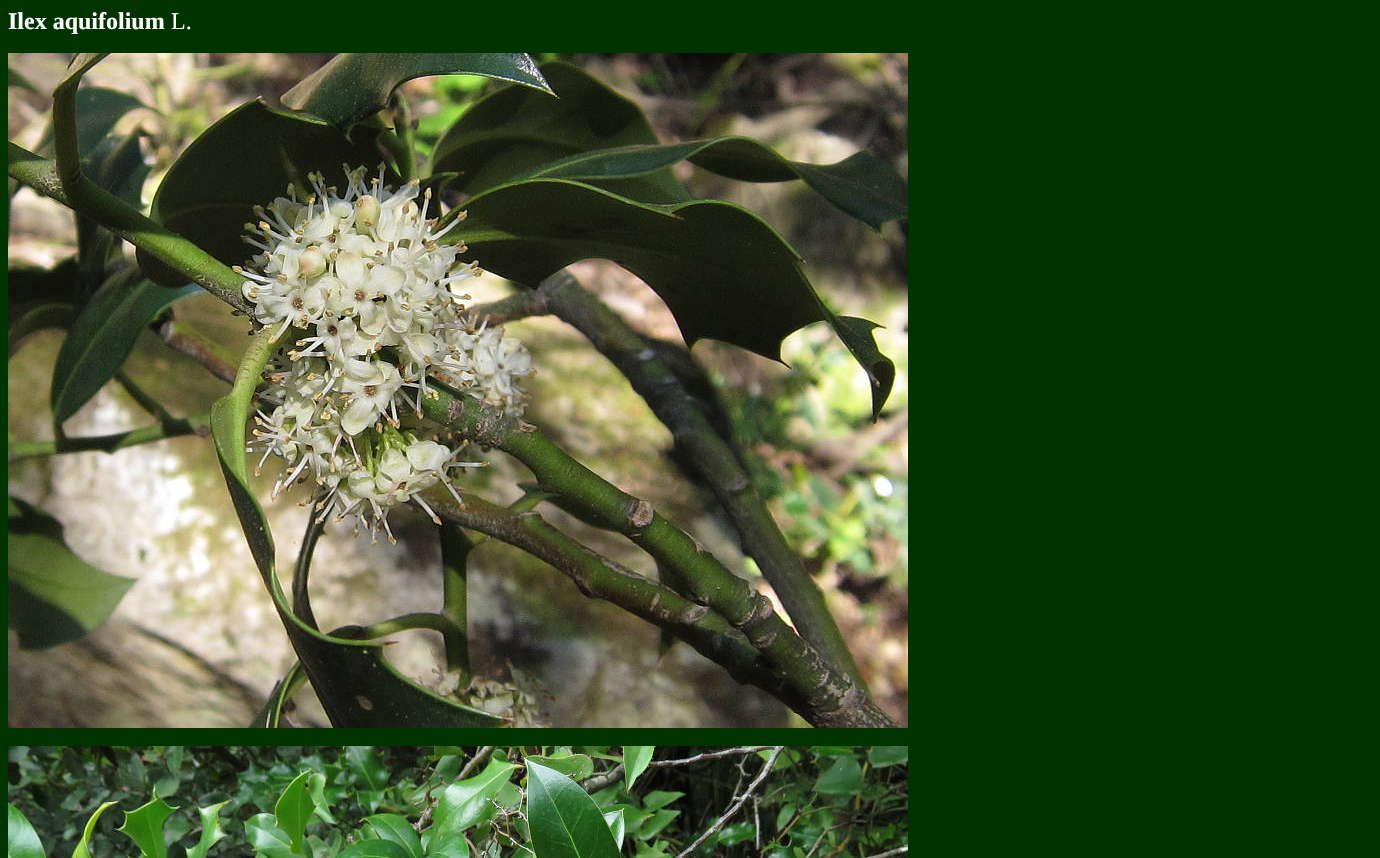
void draw(SkCanvas* canvas) {
  SkPaint paint;
  paint.setAntiAlias(true);
  auto face = [&](const char* family, int weight, float size, bool italic = false) {
    SkFontStyle style(weight, SkFontStyle::kNormal_Width,
      italic ? SkFontStyle::kItalic_Slant : SkFontStyle::kUpright_Slant);
    SkFont result(fontMgr->matchFamilyStyle(family, style), size);
    result.setSubpixel(true);
    return result;
  };
  auto paste = [&](const char* path, float x, float y, float w, float h) {
    auto image = SkImages::DeferredFromEncodedData(SkData::MakeFromFileName(path));
    canvas->drawImageRect(image, SkRect::MakeXYWH(x, y, w, h), SkSamplingOptions());
  };
  canvas->clear(0xff003300);
  paste("img/1.png", 8, 53, 900, 675);
  paste("img/2.png", 8, 746, 900, 112);
  auto f0 = face("Liberation Serif", 700, 24);
  paint.setColor(0xffffffff);
  canvas->drawString("Ilex aquifolium", 8, 29, f0, paint);
  auto f1 = face("Liberation Serif", 400, 24);
  canvas->drawString("L.", 171, 29, f1, paint);
}
